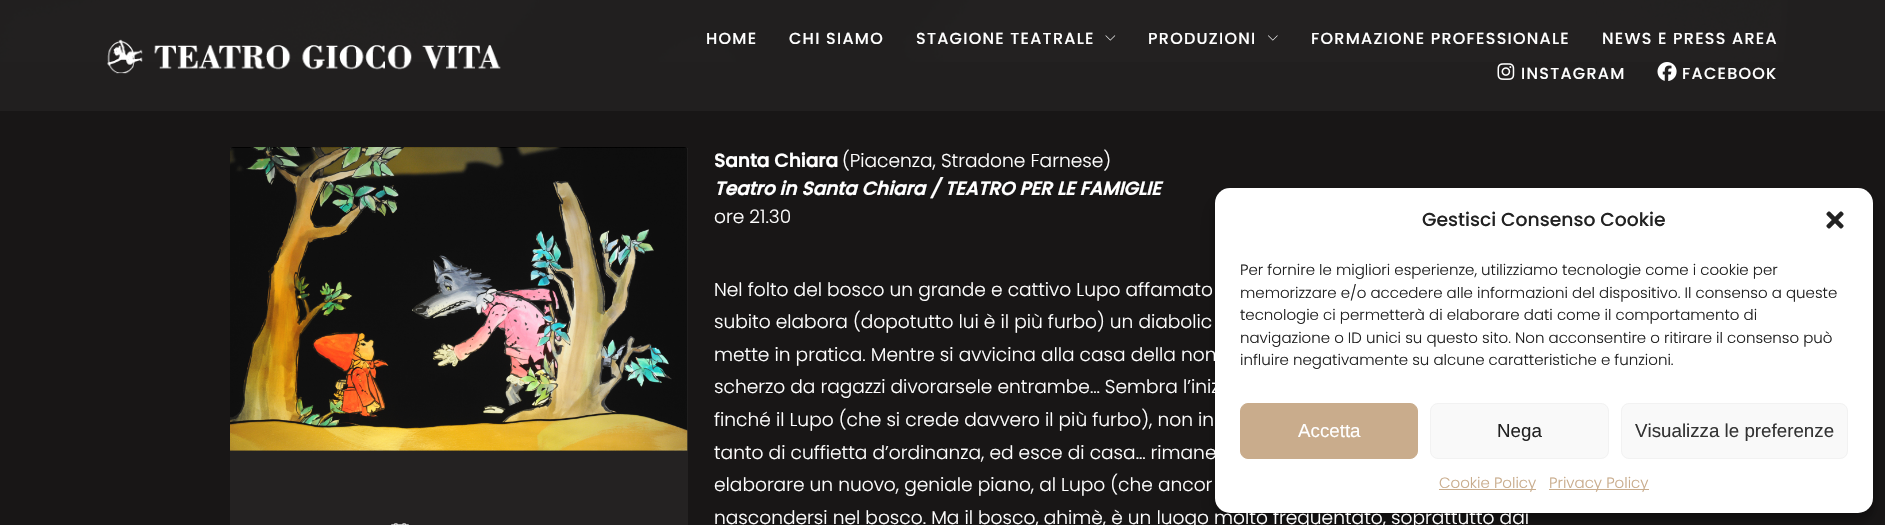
void draw(SkCanvas* canvas) {
  SkPaint paint;
  paint.setAntiAlias(true);
  auto face = [&](const char* family, int weight, float size, bool italic = false) {
    SkFontStyle style(weight, SkFontStyle::kNormal_Width,
      italic ? SkFontStyle::kItalic_Slant : SkFontStyle::kUpright_Slant);
    SkFont result(fontMgr->matchFamilyStyle(family, style), size);
    result.setSubpixel(true);
    return result;
  };
  auto writeSpaced = [&](const char* s, float x, float y, const SkFont& font, const SkPaint& ink, float letter, float word) {
    std::vector<SkGlyphID> glyphs(font.countText(s, strlen(s), SkTextEncoding::kUTF8));
    std::vector<float> xs(glyphs.size());
    font.textToGlyphs(s, strlen(s), SkTextEncoding::kUTF8, glyphs);
    font.getXPos(glyphs, xs, x);
    float extra = 0;
    for (size_t i = 0; i < glyphs.size(); i++) {
      xs[i] += extra;
      extra += letter + word * (glyphs[i] == font.unicharToGlyph(' '));
    }
    canvas->drawTextBlob(SkTextBlob::MakeFromPosHGlyphs(glyphs, xs, y, font), 0, 0, ink);
  };
  auto paste = [&](const char* path, float x, float y, float w, float h) {
    auto image = SkImages::DeferredFromEncodedData(SkData::MakeFromFileName(path));
    canvas->drawImageRect(image, SkRect::MakeXYWH(x, y, w, h), SkSamplingOptions());
  };
  canvas->clear(0xff181616);
  paint.setColor(0xff211f1f);
  canvas->drawRect(SkRect::MakeXYWH(0, 62, 1885, 49), paint);
  paste("img/1.png", 0, 0, 1885, 62);
  paste("img/2.png", 107, 39, 394, 35);
  paste("img/3.png", 1105, 35, 11, 6);
  paste("img/4.png", 1268, 35, 10, 6);
  paste("img/5.png", 1497, 63, 18, 17);
  paste("img/6.png", 1657, 62, 20, 19);
  paste("img/7.png", 230, 147, 458, 304);
  paste("img/8.png", 391, 523, 18, 2);
  paint.setColor(0x0dffffff);
  canvas->drawRect(SkRect::MakeXYWH(230, 148, 458, 377), paint);
  paint.setColor(0x3b000000);
  paint.setMaskFilter(SkMaskFilter::MakeBlur(kNormal_SkBlurStyle, 4));
  canvas->drawRoundRect(SkRect::MakeXYWH(1215, 195, 658, 325), 15, 15, paint);
  paint.setMaskFilter(nullptr);
  paint.setColor(0x30000000);
  paint.setMaskFilter(SkMaskFilter::MakeBlur(kNormal_SkBlurStyle, 12.5f));
  canvas->drawRoundRect(SkRect::MakeXYWH(1215, 200, 658, 325), 15, 15, paint);
  paint.setMaskFilter(nullptr);
  paint.setColor(0xffffffff);
  canvas->drawRoundRect(SkRect::MakeXYWH(1215, 188, 658, 325), 15, 15, paint);
  paste("img/9.png", 1826, 211, 18, 18);
  paint.setColor(0xffc9ac8c);
  canvas->drawRoundRect(SkRect::MakeXYWH(1240.5f, 403.5f, 177, 55), 7.5f, 7.5f, paint);
  paint.setStroke(true);
  paint.setStrokeWidth(1);
  canvas->drawRoundRect(SkRect::MakeXYWH(1240.5f, 403.5f, 177, 55), 7.5f, 7.5f, paint);
  paint.setStroke(false);
  paint.setColor(0xfff9f9f9);
  canvas->drawRoundRect(SkRect::MakeXYWH(1430.5f, 403.5f, 178, 55), 7.5f, 7.5f, paint);
  paint.setStroke(true);
  paint.setColor(0xfff2f2f2);
  canvas->drawRoundRect(SkRect::MakeXYWH(1430.5f, 403.5f, 178, 55), 7.5f, 7.5f, paint);
  paint.setStroke(false);
  paint.setColor(0xfff9f9f9);
  canvas->drawRoundRect(SkRect::MakeXYWH(1621.5f, 403.5f, 226, 55), 7.5f, 7.5f, paint);
  paint.setStroke(true);
  paint.setColor(0xfff2f2f2);
  canvas->drawRoundRect(SkRect::MakeXYWH(1621.5f, 403.5f, 226, 55), 7.5f, 7.5f, paint);
  paint.setStroke(false);
  paint.setColor(0xffc9ac8c);
  canvas->drawRect(SkRect::MakeXYWH(1439, 489, 97, 1), paint);
  canvas->drawRect(SkRect::MakeXYWH(1549, 489, 100, 1), paint);
  auto f0 = face("Poppins", 500, 16);
  paint.setColor(0xffffffff);
  {
    const struct { const char* s; float x, y; } items[] = {
      {"HOME", 706, 44},
      {"CHI SIAMO", 789, 44},
      {"STAGIONE TEATRALE", 916, 44},
      {"PRODUZIONI", 1148, 44},
      {"FORMAZIONE PROFESSIONALE", 1311, 44},
      {"NEWS E PRESS AREA", 1602, 44},
      {"INSTAGRAM", 1521, 79},
      {"FACEBOOK", 1682, 79},
    };
    for (auto [s, x, y] : items) {
      writeSpaced(s, x, y, f0, paint, 1.25f, 0);
    }
  }
  auto f1 = face("Poppins", 700, 18.6f);
  canvas->drawString("Santa Chiara", 714, 167, f1, paint);
  auto f2 = face("Poppins", 300, 18.6f);
  canvas->drawString("(Piacenza, Stradone Farnese)", 842, 167, f2, paint);
  auto f3 = face("Poppins", 700, 18.6f, true);
  canvas->drawString("Teatro in Santa Chiara / TEATRO PER LE FAMIGLIE", 714, 195, f3, paint);
  {
    const struct { const char* s; float x, y; } items[] = {
      {"ore 21.30", 714, 223},
      {"Nel folto del bosco un grande e cattivo Lupo affamato", 714, 296},
      {"subito elabora (dopotutto lui è il più furbo) un diabolic", 714, 328},
      {"mette in pratica. Mentre si avvicina alla casa della non", 714, 361},
      {"scherzo da ragazzi divorarsele entrambe… Sembra l’iniz", 714, 393},
      {"finché il Lupo (che si crede davvero il più furbo), non in", 714, 426},
      {"tanto di cuffietta d’ordinanza, ed esce di casa… rimane", 714, 459},
      {"elaborare un nuovo, geniale piano, al Lupo (che ancor", 714, 491},
      {"nascondersi nel bosco. Ma il bosco, ahimè, è un luogo molto frequentato, soprattutto dai", 714, 524},
    };
    for (auto [s, x, y] : items) {
      canvas->drawString(s, x, y, f2, paint);
    }
  }
  auto f4 = face("Poppins", 500, 18.75f);
  paint.setColor(0xff222222);
  canvas->drawString("Gestisci Consenso Cookie", 1422, 226, f4, paint);
  auto f5 = face("Poppins", 300, 15);
  {
    const struct { const char* s; float x, y; } items[] = {
      {"Per fornire le migliori esperienze, utilizziamo tecnologie come i cookie per", 1240, 275},
      {"memorizzare e/o accedere alle informazioni del dispositivo. Il consenso a queste", 1240, 298},
      {"tecnologie ci permetterà di elaborare dati come il comportamento di", 1240, 320},
      {"navigazione o ID unici su questo sito. Non acconsentire o ritirare il consenso può", 1240, 343},
      {"influire negativamente su alcune caratteristiche e funzioni.", 1240, 365},
    };
    for (auto [s, x, y] : items) {
      canvas->drawString(s, x, y, f5, paint);
    }
  }
  auto f6 = face("Liberation Sans", 400, 18.75f);
  paint.setColor(0xffffffff);
  canvas->drawString("Accetta", 1298, 437, f6, paint);
  paint.setColor(0xff222222);
  canvas->drawString("Nega", 1497, 437, f6, paint);
  paint.setColor(0xff333333);
  canvas->drawString("Visualizza le preferenze", 1635, 437, f6, paint);
  paint.setColor(0xffc9ac8c);
  canvas->drawString("Cookie Policy", 1439, 488, f5, paint);
  canvas->drawString("Privacy Policy", 1549, 488, f5, paint);
}
